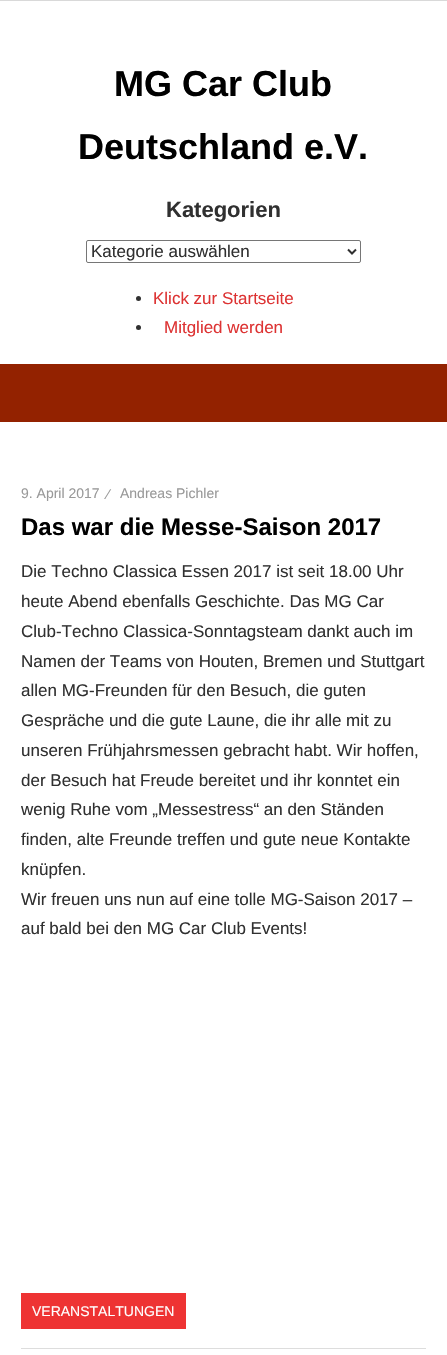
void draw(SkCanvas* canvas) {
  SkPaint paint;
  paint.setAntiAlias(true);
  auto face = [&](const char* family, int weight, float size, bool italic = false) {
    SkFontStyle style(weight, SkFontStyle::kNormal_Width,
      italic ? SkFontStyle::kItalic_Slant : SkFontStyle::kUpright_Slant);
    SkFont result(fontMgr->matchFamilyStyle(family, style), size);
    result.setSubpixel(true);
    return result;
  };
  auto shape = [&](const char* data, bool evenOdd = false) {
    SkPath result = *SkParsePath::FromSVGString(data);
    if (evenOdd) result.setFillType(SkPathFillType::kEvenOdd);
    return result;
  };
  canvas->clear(0xffd9d9d9);
  paint.setColor(0xffffffff);
  canvas->drawRect(SkRect::MakeXYWH(0, 1, 447, 1354), paint);
  paint.setStroke(true);
  paint.setStrokeWidth(1);
  paint.setColor(0xff767676);
  canvas->drawRoundRect(SkRect::MakeXYWH(86.5f, 240.5f, 274, 22), 1.5f, 1.5f, paint);
  paint.setStrokeWidth(2);
  paint.setColor(0xff303030);
  canvas->drawPath(shape("M348 249.5L352 253.5L356 249.5"), paint);
  paint.setStroke(false);
  canvas->drawCircle(138.5f, 298.5f, 2.5f, paint);
  canvas->drawCircle(138.5f, 327.5f, 2.5f, paint);
  {
    const struct { float x, y, w, h; SkColor color; } items[] = {
      {0, 364, 447, 58, 0xff932200},
      {21, 1293, 165, 36, 0xffee3333},
      {21, 1348, 405, 1, 0xffdddddd},
    };
    for (auto [x, y, w, h, color] : items) {
      paint.setColor(color);
      canvas->drawRect(SkRect::MakeXYWH(x, y, w, h), paint);
    }
  }
  auto f0 = face("Liberation Sans", 700, 36);
  paint.setColor(0xff000000);
  canvas->drawString("MG Car Club", 114, 96, f0, paint);
  canvas->drawString("Deutschland e.V.", 78, 159, f0, paint);
  auto f1 = face("Liberation Sans", 700, 22);
  paint.setColor(0xff303030);
  canvas->drawString("Kategorien", 166, 217, f1, paint);
  auto f2 = face("Liberation Sans", 400, 17);
  canvas->drawString("Kategorie auswählen", 91, 257, f2, paint);
  paint.setColor(0xffdd3333);
  canvas->drawString("Klick zur Startseite", 153, 304, f2, paint);
  canvas->drawString("Mitglied werden", 164, 333, f2, paint);
  auto f3 = face("Liberation Sans", 400, 14);
  paint.setColor(0xff999999);
  {
    const struct { const char* s; float x, y; } items[] = {
      {"9. April 2017", 21, 498},
      {"⁄", 107, 499},
      {"Andreas Pichler", 120, 498},
    };
    for (auto [s, x, y] : items) {
      canvas->drawString(s, x, y, f3, paint);
    }
  }
  auto f4 = face("Liberation Sans", 700, 24);
  paint.setColor(0xff000000);
  canvas->drawString("Das war die Messe-Saison 2017", 21, 535, f4, paint);
  paint.setColor(0xff303030);
  {
    const struct { const char* s; float x, y; } items[] = {
      {"Die Techno Classica Essen 2017 ist seit 18.00 Uhr", 21, 577},
      {"heute Abend ebenfalls Geschichte. Das MG Car", 21, 607},
      {"Club-Techno Classica-Sonntagsteam dankt auch im", 21, 637},
      {"Namen der Teams von Houten, Bremen und Stuttgart", 21, 667},
      {"allen MG-Freunden für den Besuch, die guten", 21, 696},
      {"Gespräche und die gute Laune, die ihr alle mit zu", 21, 726},
      {"unseren Frühjahrsmessen gebracht habt. Wir hoffen,", 21, 756},
      {"der Besuch hat Freude bereitet und ihr konntet ein", 21, 786},
      {"wenig Ruhe vom „Messestress“ an den Ständen", 21, 815},
      {"finden, alte Freunde treffen und gute neue Kontakte", 21, 845},
      {"knüpfen.", 21, 875},
      {"Wir freuen uns nun auf eine tolle MG-Saison 2017 –", 21, 905},
      {"auf bald bei den MG Car Club Events!", 21, 934},
    };
    for (auto [s, x, y] : items) {
      canvas->drawString(s, x, y, f2, paint);
    }
  }
  paint.setColor(0xffffffff);
  canvas->drawString("VERANSTALTUNGEN", 32, 1316, f3, paint);
}
